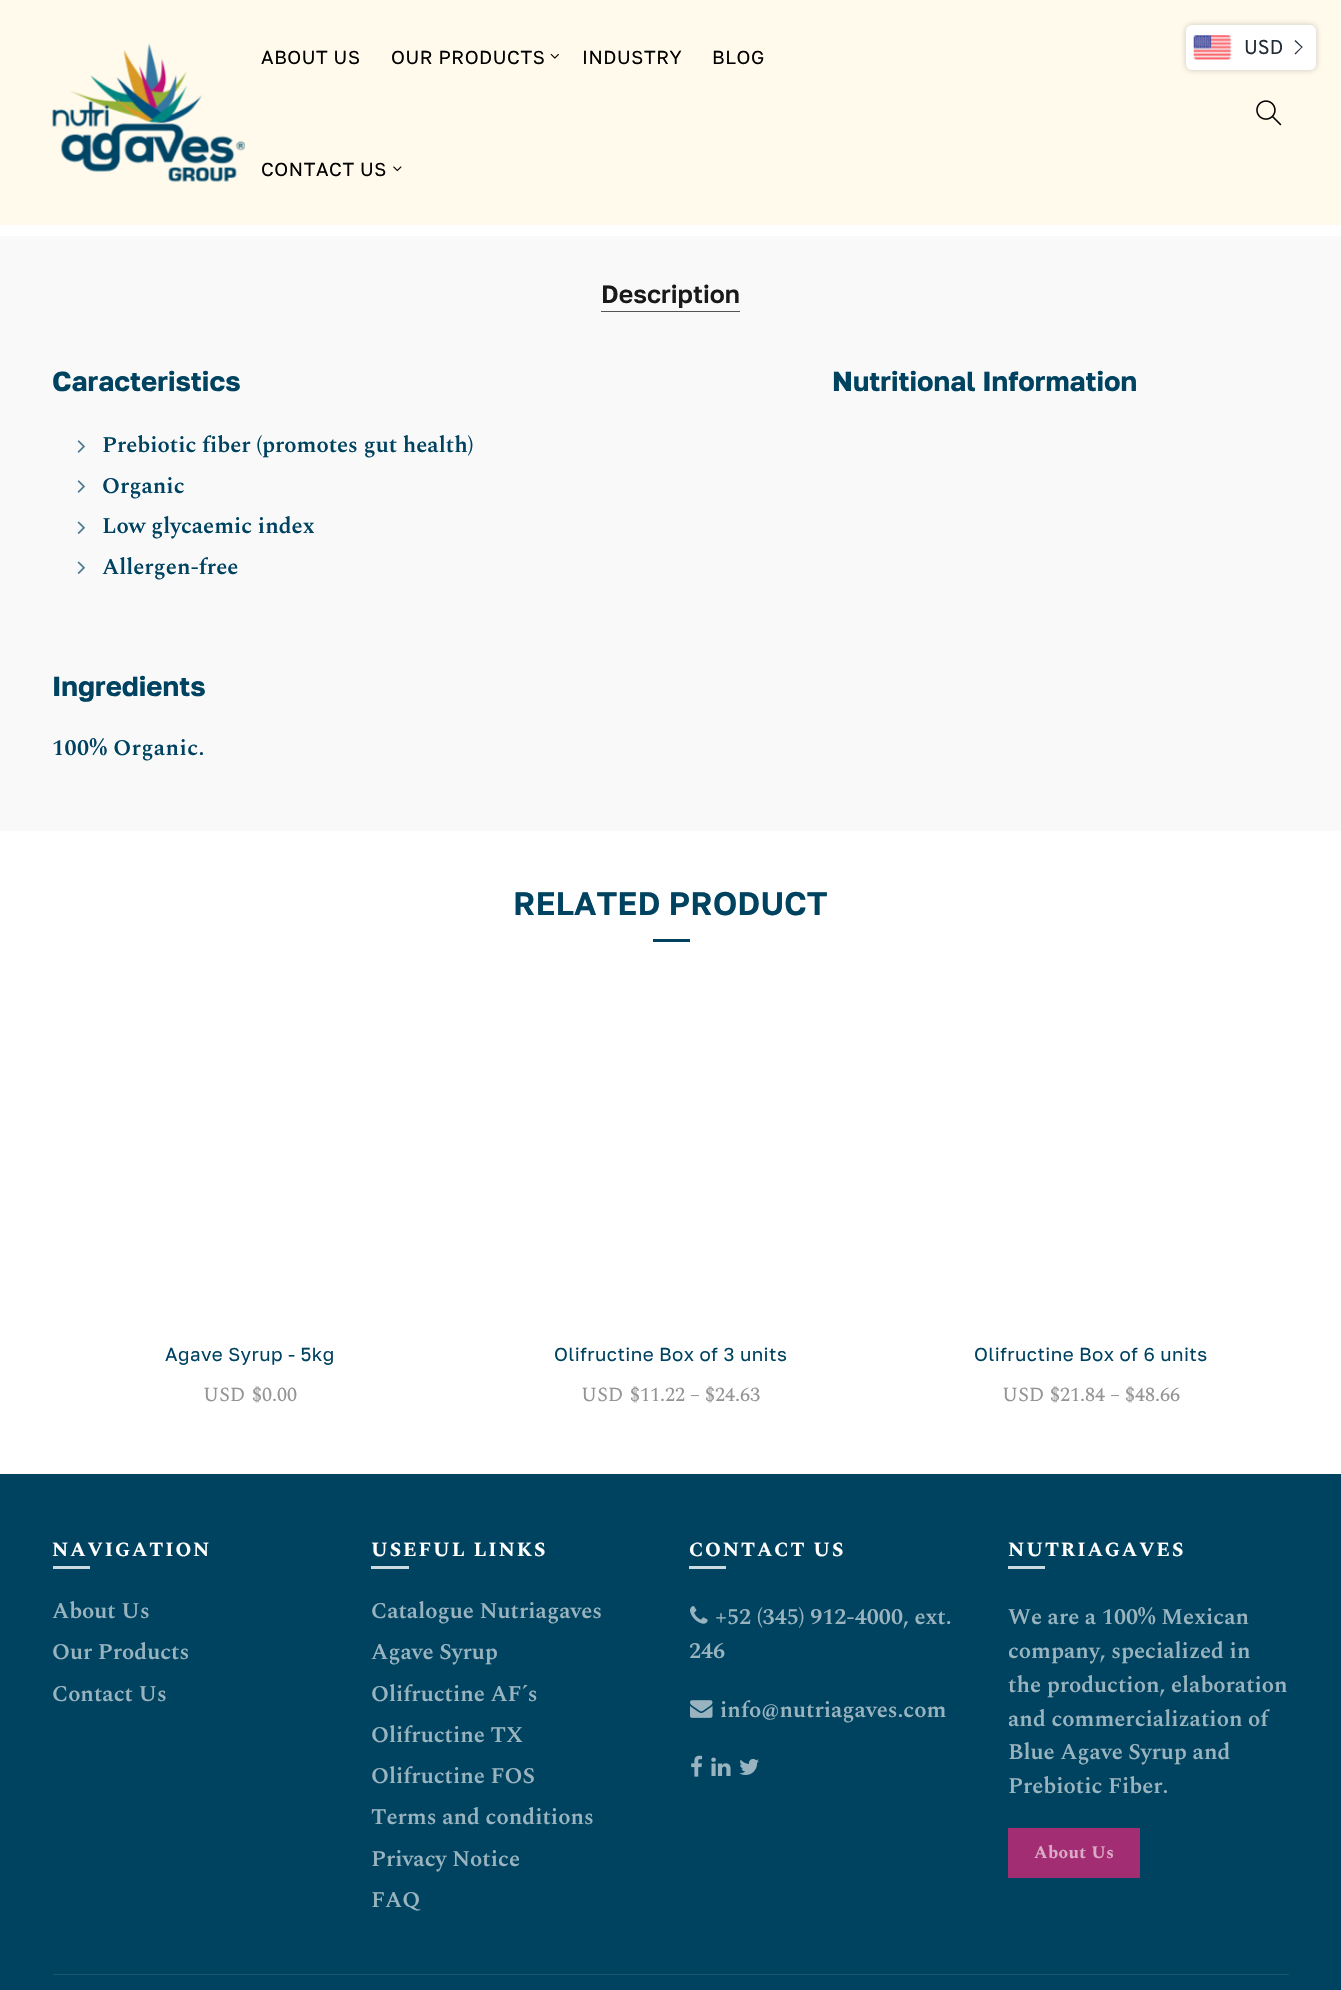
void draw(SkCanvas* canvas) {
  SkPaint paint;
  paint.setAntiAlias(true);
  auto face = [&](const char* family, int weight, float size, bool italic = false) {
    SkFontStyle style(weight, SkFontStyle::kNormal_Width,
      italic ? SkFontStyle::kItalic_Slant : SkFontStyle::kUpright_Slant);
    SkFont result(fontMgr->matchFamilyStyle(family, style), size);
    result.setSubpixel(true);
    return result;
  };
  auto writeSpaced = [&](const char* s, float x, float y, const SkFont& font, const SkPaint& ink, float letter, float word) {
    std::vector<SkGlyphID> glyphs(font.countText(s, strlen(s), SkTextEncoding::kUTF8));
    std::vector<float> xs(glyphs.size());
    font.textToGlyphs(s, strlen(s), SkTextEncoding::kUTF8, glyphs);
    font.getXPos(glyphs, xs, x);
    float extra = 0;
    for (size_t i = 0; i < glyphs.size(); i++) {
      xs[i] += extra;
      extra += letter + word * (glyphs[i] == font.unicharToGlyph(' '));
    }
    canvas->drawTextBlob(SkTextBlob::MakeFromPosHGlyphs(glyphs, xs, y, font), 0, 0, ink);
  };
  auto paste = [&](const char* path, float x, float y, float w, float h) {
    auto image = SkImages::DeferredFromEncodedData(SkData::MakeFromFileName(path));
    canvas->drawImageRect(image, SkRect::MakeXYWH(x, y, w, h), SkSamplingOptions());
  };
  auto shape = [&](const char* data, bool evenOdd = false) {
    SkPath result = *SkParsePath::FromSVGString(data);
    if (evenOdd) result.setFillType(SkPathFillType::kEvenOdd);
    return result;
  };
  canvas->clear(0xffffffff);
  paint.setColor(0xfffffaeb);
  canvas->drawRect(SkRect::MakeXYWH(0, 0, 1341, 225), paint);
  paint.setColor(0x40212b36);
  paint.setMaskFilter(SkMaskFilter::MakeBlur(kNormal_SkBlurStyle, 3));
  canvas->drawRoundRect(SkRect::MakeXYWH(1186, 25, 130, 45), 6, 6, paint);
  paint.setMaskFilter(nullptr);
  paint.setColor(0xffffffff);
  canvas->drawRoundRect(SkRect::MakeXYWH(1186, 25, 130, 45), 6, 6, paint);
  paste("img/1.png", 1193, 35, 39, 25);
  paint.setColor(0xff212b36);
  canvas->drawPath(shape("M1294.5 41L1295.5 40L1302.5 47L1302 48Z"), paint);
  canvas->drawPath(shape("M1294.5 53.5L1302 46.5L1302.5 47L1295.5 54.5Z"), paint);
  paste("img/2.png", 52, 43, 193, 139);
  paste("img/3.png", 550, 53, 9, 6);
  paste("img/4.png", 393, 166, 9, 6);
  paste("img/5.png", 1256, 100, 26, 26);
  paint.setColor(0xfff9f9f9);
  canvas->drawRect(SkRect::MakeXYWH(0, 236, 1341, 595), paint);
  paint.setColor(0xff545454);
  canvas->drawRect(SkRect::MakeXYWH(601, 311, 139, 1), paint);
  paste("img/6.png", 77, 440, 8, 13);
  paste("img/6.png", 77, 480, 8, 13);
  paste("img/7.png", 77, 521, 8, 13);
  paste("img/7.png", 77, 561, 8, 13);
  {
    const struct { float x, y, w, h; SkColor color; } items[] = {
      {653, 939, 37, 3, 0xff004360},
      {0, 1474, 1341, 516, 0xff004360},
      {53, 1566, 37, 3, 0xffccd9df},
      {371, 1566, 38, 3, 0xffccd9df},
      {689, 1566, 37, 3, 0xffccd9df},
    };
    for (auto [x, y, w, h, color] : items) {
      paint.setColor(color);
      canvas->drawRect(SkRect::MakeXYWH(x, y, w, h), paint);
    }
  }
  paste("img/8.png", 690, 1606, 18, 18);
  paste("img/9.png", 690, 1700, 23, 18);
  paste("img/10.png", 691, 1755, 12, 22);
  paste("img/11.png", 711, 1757, 20, 19);
  paste("img/12.png", 739, 1759, 20, 16);
  {
    const struct { float x, y, w, h; SkColor color; } items[] = {
      {1008, 1566, 37, 3, 0xffccd9df},
      {1008, 1828, 132, 50, 0xffa32d72},
      {53, 1974, 1236, 1, 0xff1a5670},
    };
    for (auto [x, y, w, h, color] : items) {
      paint.setColor(color);
      canvas->drawRect(SkRect::MakeXYWH(x, y, w, h), paint);
    }
  }
  auto f0 = face("Overpass", 400, 20);
  paint.setColor(0xff212b36);
  canvas->drawString("USD", 1244, 54, f0, paint);
  auto f1 = face("Golos Text", 400, 18.75f);
  paint.setColor(0xff000000);
  {
    const struct { const char* s; float x, y; } items[] = {
      {"ABOUT US", 261, 64},
      {"OUR PRODUCTS", 391, 64},
      {"INDUSTRY", 582, 64},
      {"BLOG", 712, 64},
      {"CONTACT US", 261, 176},
    };
    for (auto [s, x, y] : items) {
      writeSpaced(s, x, y, f1, paint, 0.6f, 0);
    }
  }
  auto f2 = face("Golos Text", 600, 25);
  paint.setColor(0xff191919);
  canvas->drawString("Description", 601, 303, f2, paint);
  auto f3 = face("Golos Text", 700, 27.5f);
  paint.setColor(0xff004360);
  canvas->drawString("Caracteristics", 52, 391, f3, paint);
  auto f4 = face("Spectral", 600, 22.5f);
  {
    const struct { const char* s; float x, y; } items[] = {
      {"Prebiotic fiber (promotes gut health)", 102, 452},
      {"Organic", 102, 493},
      {"Low glycaemic index", 102, 533},
      {"Allergen-free", 102, 574},
    };
    for (auto [s, x, y] : items) {
      canvas->drawString(s, x, y, f4, paint);
    }
  }
  canvas->drawString("Ingredients", 52, 696, f3, paint);
  writeSpaced("100% Organic.", 52, 755, f4, paint, 0.4f, 0);
  canvas->drawString("Nutritional Information", 832, 391, f3, paint);
  auto f5 = face("Golos Text", 600, 32.5f);
  canvas->drawString("RELATED PRODUCT", 513, 915, f5, paint);
  writeSpaced("Agave Syrup - 5kg", 165, 1361, f1, paint, 0.4f, 0);
  auto f6 = face("Spectral", 400, 20);
  paint.setColor(0xff949494);
  canvas->drawString("USD", 203, 1401, f6, paint);
  canvas->drawString("$0.00", 252, 1401, f6, paint);
  paint.setColor(0xff004360);
  writeSpaced("Olifructine Box of 3 units", 554, 1361, f1, paint, 0.4f, 0);
  paint.setColor(0xff949494);
  canvas->drawString("USD", 581, 1401, f6, paint);
  canvas->drawString("$11.22 – $24.63", 630, 1401, f6, paint);
  paint.setColor(0xff004360);
  writeSpaced("Olifructine Box of 6 units", 974, 1361, f1, paint, 0.4f, 0);
  paint.setColor(0xff949494);
  canvas->drawString("USD", 1002, 1401, f6, paint);
  canvas->drawString("$21.84 – $48.66", 1050, 1401, f6, paint);
  auto f7 = face("Spectral", 700, 20);
  paint.setColor(0xffffffff);
  writeSpaced("NAVIGATION", 52, 1556, f7, paint, 1.9f, 0);
  paint.setColor(0xff99b4bf);
  {
    const struct { const char* s; float x, y; } items[] = {
      {"About Us", 52, 1618},
      {"Our Products", 52, 1659},
      {"Contact Us", 52, 1701},
    };
    for (auto [s, x, y] : items) {
      canvas->drawString(s, x, y, f4, paint);
    }
  }
  paint.setColor(0xffffffff);
  writeSpaced("USEFUL LINKS", 371, 1556, f7, paint, 1.9f, 0);
  paint.setColor(0xff99b4bf);
  {
    const struct { const char* s; float x, y; } items[] = {
      {"Catalogue Nutriagaves", 371, 1618},
      {"Agave Syrup", 371, 1659},
      {"Olifructine AF´s", 371, 1701},
      {"Olifructine TX", 371, 1742},
      {"Olifructine FOS", 371, 1783},
      {"Terms and conditions", 371, 1824},
      {"Privacy Notice", 371, 1866},
      {"FAQ", 371, 1907},
    };
    for (auto [s, x, y] : items) {
      canvas->drawString(s, x, y, f4, paint);
    }
  }
  paint.setColor(0xffffffff);
  writeSpaced("CONTACT US", 689, 1556, f7, paint, 1.9f, 0);
  paint.setColor(0xff99b4bf);
  {
    const struct { const char* s; float x, y; } items[] = {
      {"+52 (345) 912-4000, ext.", 715, 1624},
      {"246", 689, 1658},
      {"info@nutriagaves.com", 720, 1717},
    };
    for (auto [s, x, y] : items) {
      canvas->drawString(s, x, y, f4, paint);
    }
  }
  paint.setColor(0xffffffff);
  writeSpaced("NUTRIAGAVES", 1008, 1556, f7, paint, 1.9f, 0);
  paint.setColor(0xff99b4bf);
  {
    const struct { const char* s; float x, y; } items[] = {
      {"We are a 100% Mexican", 1008, 1624},
      {"company, specialized in", 1008, 1658},
      {"the production, elaboration", 1008, 1692},
      {"and commercialization of", 1008, 1726},
      {"Blue Agave Syrup and", 1008, 1759},
      {"Prebiotic Fiber.", 1008, 1793},
    };
    for (auto [s, x, y] : items) {
      canvas->drawString(s, x, y, f4, paint);
    }
  }
  auto f8 = face("Spectral", 700, 17.5f);
  paint.setColor(0xffdaabc7);
  writeSpaced("About Us", 1034, 1858, f8, paint, 0.4f, 0);
}
